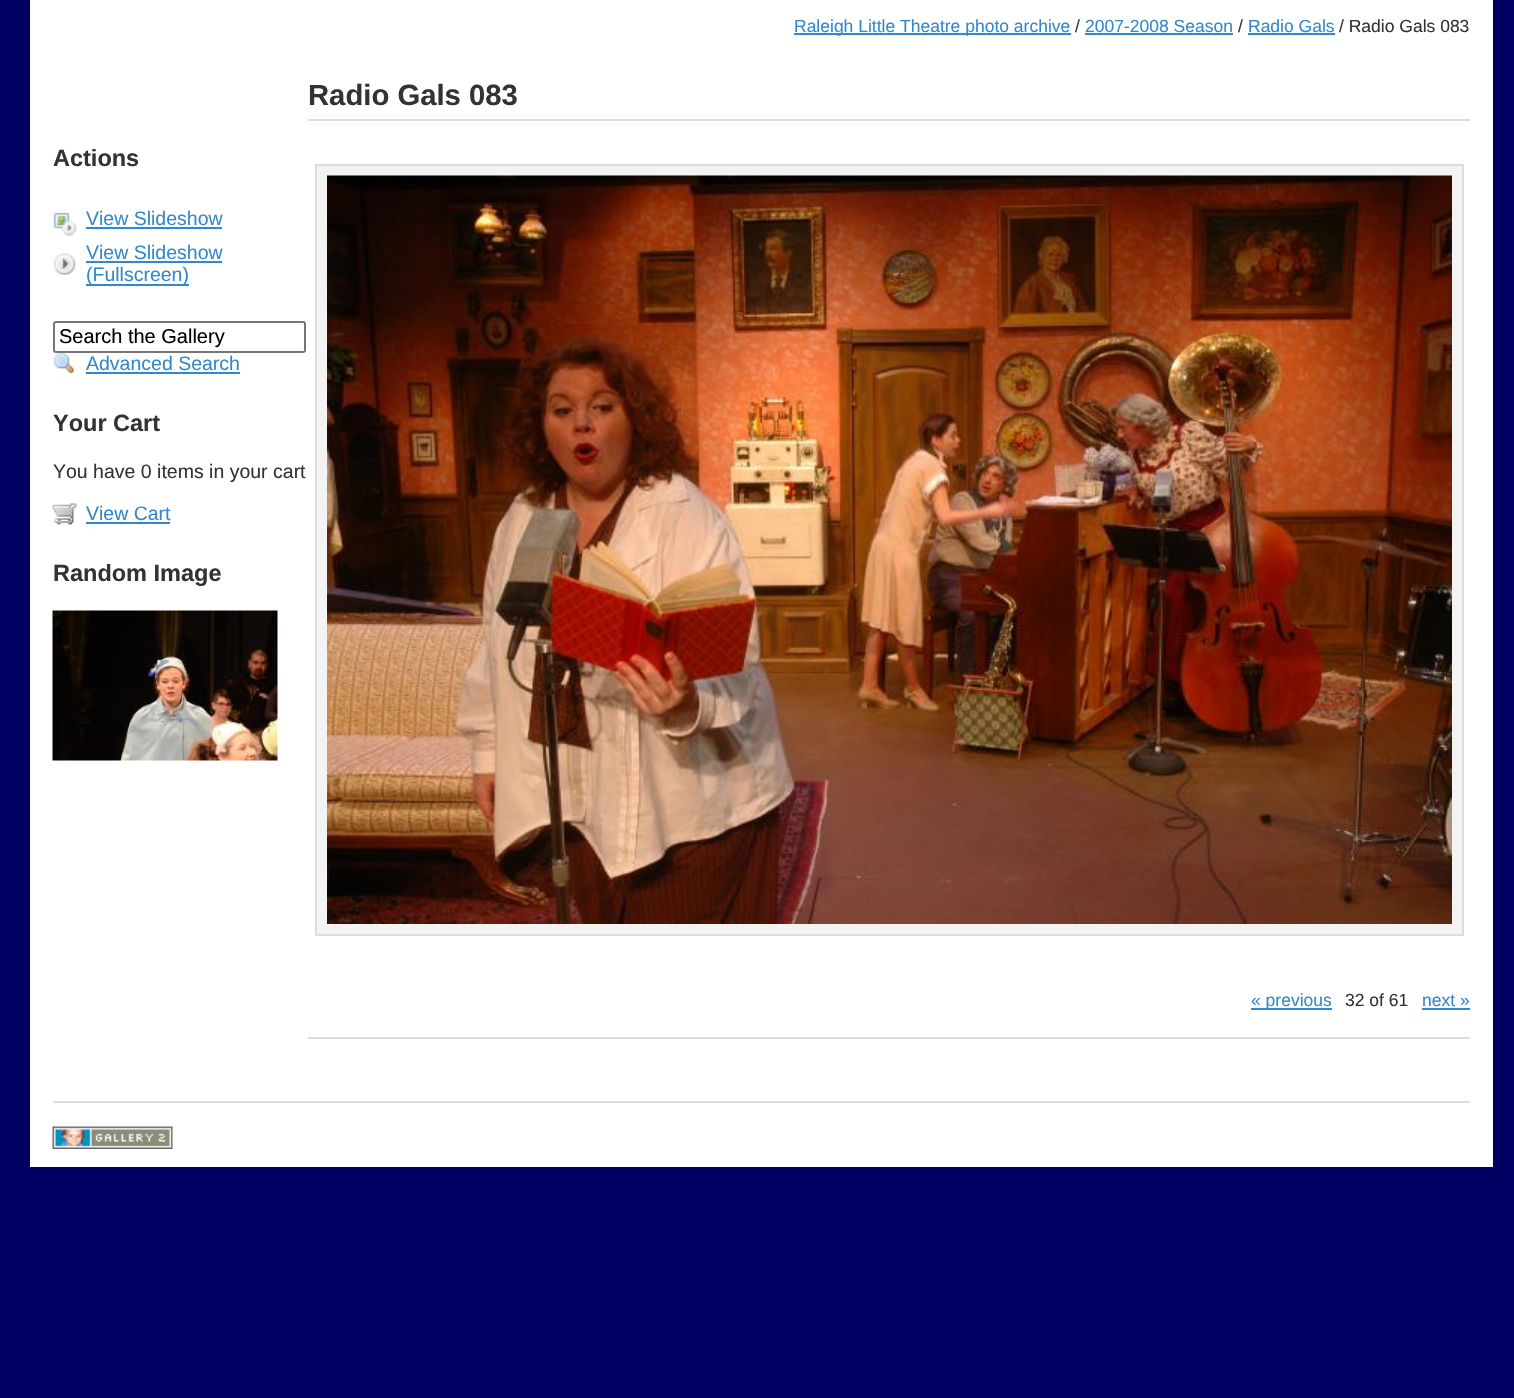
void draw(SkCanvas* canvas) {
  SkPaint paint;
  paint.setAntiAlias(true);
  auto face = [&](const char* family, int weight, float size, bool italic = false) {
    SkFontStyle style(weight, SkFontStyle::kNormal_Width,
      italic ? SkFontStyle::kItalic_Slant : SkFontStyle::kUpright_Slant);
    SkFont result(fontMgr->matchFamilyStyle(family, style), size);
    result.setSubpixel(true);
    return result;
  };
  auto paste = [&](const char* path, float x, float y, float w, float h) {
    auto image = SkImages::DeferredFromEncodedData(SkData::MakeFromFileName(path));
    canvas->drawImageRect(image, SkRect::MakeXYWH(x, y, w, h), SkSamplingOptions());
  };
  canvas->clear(0xff000063);
  {
    const struct { float x, y, w, h; SkColor color; } items[] = {
      {30, 0, 1463, 1167, 0xffffffff},
      {794, 33, 277, 2, 0xff3388cc},
      {1085, 33, 148, 2, 0xff3388cc},
      {1248, 33, 87, 2, 0xff3388cc},
    };
    for (auto [x, y, w, h, color] : items) {
      paint.setColor(color);
      canvas->drawRect(SkRect::MakeXYWH(x, y, w, h), paint);
    }
  }
  paste("img/1.png", 53, 212, 24, 24);
  canvas->drawRect(SkRect::MakeXYWH(86, 227, 136, 2), paint);
  paste("img/2.png", 53, 253, 23, 22);
  canvas->drawRect(SkRect::MakeXYWH(86, 261, 136, 2), paint);
  canvas->drawRect(SkRect::MakeXYWH(86, 284, 103, 2), paint);
  paint.setStroke(true);
  paint.setStrokeWidth(2);
  paint.setColor(0xff767676);
  canvas->drawRoundRect(SkRect::MakeXYWH(54, 322, 251, 30), 2, 2, paint);
  paste("img/3.png", 53, 353, 21, 22);
  paint.setStroke(false);
  paint.setColor(0xff3388cc);
  canvas->drawRect(SkRect::MakeXYWH(86, 372, 154, 2), paint);
  paste("img/4.png", 52, 503, 25, 22);
  canvas->drawRect(SkRect::MakeXYWH(86, 522, 84, 2), paint);
  paste("img/5.png", 52, 610, 226, 151);
  paint.setColor(0xffdddddd);
  canvas->drawRect(SkRect::MakeXYWH(308, 119, 1162, 2), paint);
  paint.setColor(0xfff3f3f3);
  canvas->drawRect(SkRect::MakeXYWH(316, 165, 1147, 770), paint);
  paint.setStroke(true);
  paint.setColor(0xffdddddd);
  canvas->drawRect(SkRect::MakeXYWH(316, 165, 1147, 770), paint);
  paste("img/6.png", 327, 175, 1125, 749);
  paint.setStroke(false);
  {
    const struct { float x, y, w, h; SkColor color; } items[] = {
      {1251, 1008, 81, 2, 0xff3388cc},
      {1422, 1008, 48, 2, 0xff3388cc},
      {308, 1037, 1162, 2, 0xffdddddd},
      {53, 1101, 1417, 2, 0xffdddddd},
    };
    for (auto [x, y, w, h, color] : items) {
      paint.setColor(color);
      canvas->drawRect(SkRect::MakeXYWH(x, y, w, h), paint);
    }
  }
  paste("img/7.png", 52, 1126, 121, 23);
  auto f0 = face("Liberation Sans", 400, 17.5f);
  paint.setColor(0xff3388cc);
  canvas->drawString("Raleigh Little Theatre photo archive", 794, 32, f0, paint);
  paint.setColor(0xff333333);
  canvas->drawString("/", 1075, 32, f0, paint);
  paint.setColor(0xff3388cc);
  canvas->drawString("2007-2008 Season", 1085, 32, f0, paint);
  paint.setColor(0xff333333);
  canvas->drawString("/", 1238, 32, f0, paint);
  paint.setColor(0xff3388cc);
  canvas->drawString("Radio Gals", 1248, 32, f0, paint);
  paint.setColor(0xff333333);
  canvas->drawString("/ Radio Gals 083", 1339, 32, f0, paint);
  auto f1 = face("Liberation Sans", 700, 23.5f);
  canvas->drawString("Actions", 53, 166, f1, paint);
  auto f2 = face("Liberation Sans", 400, 19.5f);
  paint.setColor(0xff3388cc);
  {
    const struct { const char* s; float x, y; } items[] = {
      {"View Slideshow", 86, 225},
      {"View Slideshow", 86, 259},
      {"(Fullscreen)", 86, 281},
    };
    for (auto [s, x, y] : items) {
      canvas->drawString(s, x, y, f2, paint);
    }
  }
  auto f3 = face("Liberation Sans", 400, 20);
  paint.setColor(0xff000000);
  canvas->drawString("Search the Gallery", 59, 343, f3, paint);
  paint.setColor(0xff3388cc);
  canvas->drawString("Advanced Search", 86, 370, f2, paint);
  paint.setColor(0xff333333);
  canvas->drawString("Your Cart", 53, 431, f1, paint);
  canvas->drawString("You have 0 items in your cart", 53, 478, f2, paint);
  paint.setColor(0xff3388cc);
  canvas->drawString("View Cart", 86, 520, f2, paint);
  paint.setColor(0xff333333);
  canvas->drawString("Random Image", 53, 581, f1, paint);
  auto f4 = face("Liberation Sans", 700, 29.25f);
  canvas->drawString("Radio Gals 083", 308, 105, f4, paint);
  paint.setColor(0xff3388cc);
  canvas->drawString("« previous", 1251, 1006, f0, paint);
  paint.setColor(0xff333333);
  canvas->drawString("32 of 61", 1345, 1006, f0, paint);
  paint.setColor(0xff3388cc);
  canvas->drawString("next »", 1422, 1006, f0, paint);
}
